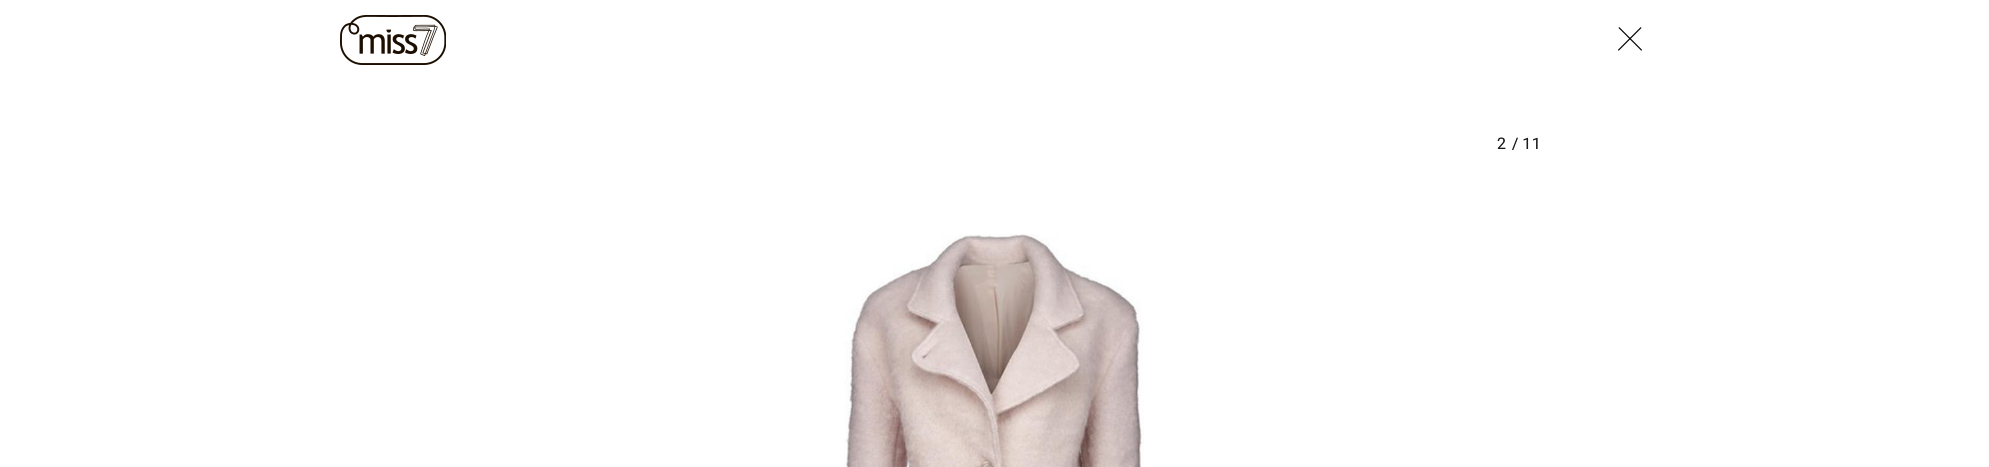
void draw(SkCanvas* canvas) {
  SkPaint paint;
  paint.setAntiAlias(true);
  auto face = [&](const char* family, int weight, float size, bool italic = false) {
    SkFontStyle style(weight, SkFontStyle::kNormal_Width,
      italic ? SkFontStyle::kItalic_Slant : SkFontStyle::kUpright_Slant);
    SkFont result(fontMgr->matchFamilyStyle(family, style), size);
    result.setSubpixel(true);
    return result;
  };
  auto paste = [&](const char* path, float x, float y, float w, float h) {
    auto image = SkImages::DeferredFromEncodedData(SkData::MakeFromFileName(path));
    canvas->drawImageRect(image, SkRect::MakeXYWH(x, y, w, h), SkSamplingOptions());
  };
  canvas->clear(0xffffffff);
  paste("img/1.png", 340, 15, 106, 50);
  paste("img/2.png", 1618, 27, 24, 24);
  paste("img/3.png", 844, 234, 300, 233);
  auto f0 = face("Roboto Mono", 400, 16);
  paint.setColor(0xff1b1b1b);
  {
    const struct { const char* s; float x, y; } items[] = {
      {"2", 1497, 149},
      {"/", 1510, 149},
      {"11", 1522, 149},
    };
    for (auto [s, x, y] : items) {
      canvas->drawString(s, x, y, f0, paint);
    }
  }
}
